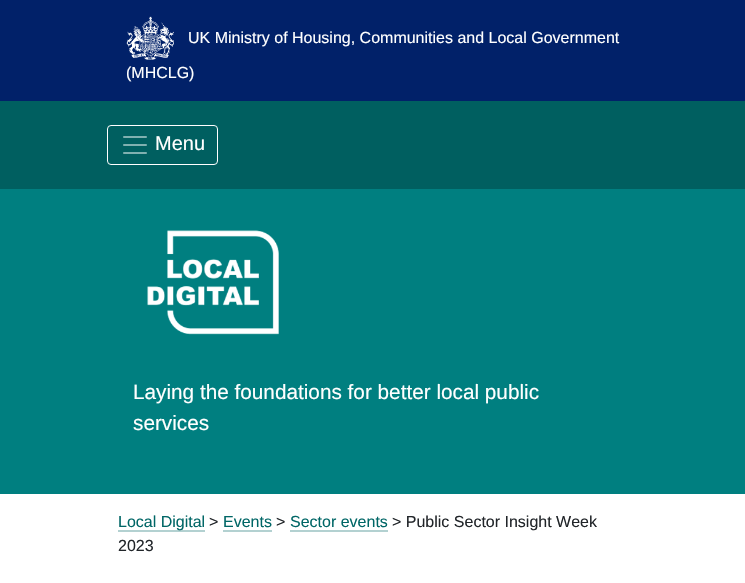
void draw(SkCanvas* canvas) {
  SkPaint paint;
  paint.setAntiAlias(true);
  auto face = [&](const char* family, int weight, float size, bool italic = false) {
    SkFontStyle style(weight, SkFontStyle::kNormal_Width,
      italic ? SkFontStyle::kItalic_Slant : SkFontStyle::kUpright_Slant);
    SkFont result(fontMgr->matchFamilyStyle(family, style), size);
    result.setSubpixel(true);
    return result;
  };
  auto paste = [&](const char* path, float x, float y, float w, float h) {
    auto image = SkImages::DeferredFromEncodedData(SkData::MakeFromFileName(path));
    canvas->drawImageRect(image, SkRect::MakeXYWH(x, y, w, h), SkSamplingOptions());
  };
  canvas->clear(0xff007f80);
  paint.setColor(0xff012169);
  canvas->drawRect(SkRect::MakeXYWH(0, 0, 745, 101), paint);
  paste("img/1.png", 126, 16, 48, 44);
  paint.setColor(0xff005f60);
  canvas->drawRect(SkRect::MakeXYWH(0, 101, 745, 88), paint);
  paint.setStroke(true);
  paint.setStrokeWidth(1);
  paint.setColor(0xffffffff);
  canvas->drawRoundRect(SkRect::MakeXYWH(107.5f, 125.5f, 110, 39), 3.5f, 3.5f, paint);
  paste("img/2.png", 123, 136, 24, 18);
  paste("img/3.png", 147, 230, 132, 105);
  paint.setStroke(false);
  {
    const struct { float x, y, w, h; SkColor color; } items[] = {
      {0, 494, 745, 89, 0xffffffff},
      {118, 530, 87, 2, 0xffb3d1d1},
      {223, 530, 49, 2, 0xffb3d1d1},
      {290, 530, 98, 2, 0xffb3d1d1},
    };
    for (auto [x, y, w, h, color] : items) {
      paint.setColor(color);
      canvas->drawRect(SkRect::MakeXYWH(x, y, w, h), paint);
    }
  }
  auto f0 = face("Liberation Sans", 400, 16);
  paint.setColor(0xffffffff);
  canvas->drawString("UK Ministry of Housing, Communities and Local Government", 188, 43, f0, paint);
  canvas->drawString("(MHCLG)", 126, 78, f0, paint);
  auto f1 = face("Liberation Sans", 400, 20);
  canvas->drawString("Menu", 155, 150, f1, paint);
  auto f2 = face("Liberation Sans", 400, 20.75f);
  canvas->drawString("Laying the foundations for better local public", 133, 399, f2, paint);
  canvas->drawString("services", 133, 430, f2, paint);
  paint.setColor(0xff006666);
  canvas->drawString("Local Digital", 118, 527, f0, paint);
  paint.setColor(0xff212529);
  canvas->drawString(">", 209, 527, f0, paint);
  paint.setColor(0xff006666);
  canvas->drawString("Events", 223, 527, f0, paint);
  paint.setColor(0xff212529);
  canvas->drawString(">", 276, 527, f0, paint);
  paint.setColor(0xff006666);
  canvas->drawString("Sector events", 290, 527, f0, paint);
  paint.setColor(0xff212529);
  canvas->drawString("> Public Sector Insight Week", 392, 527, f0, paint);
  canvas->drawString("2023", 118, 551, f0, paint);
}
